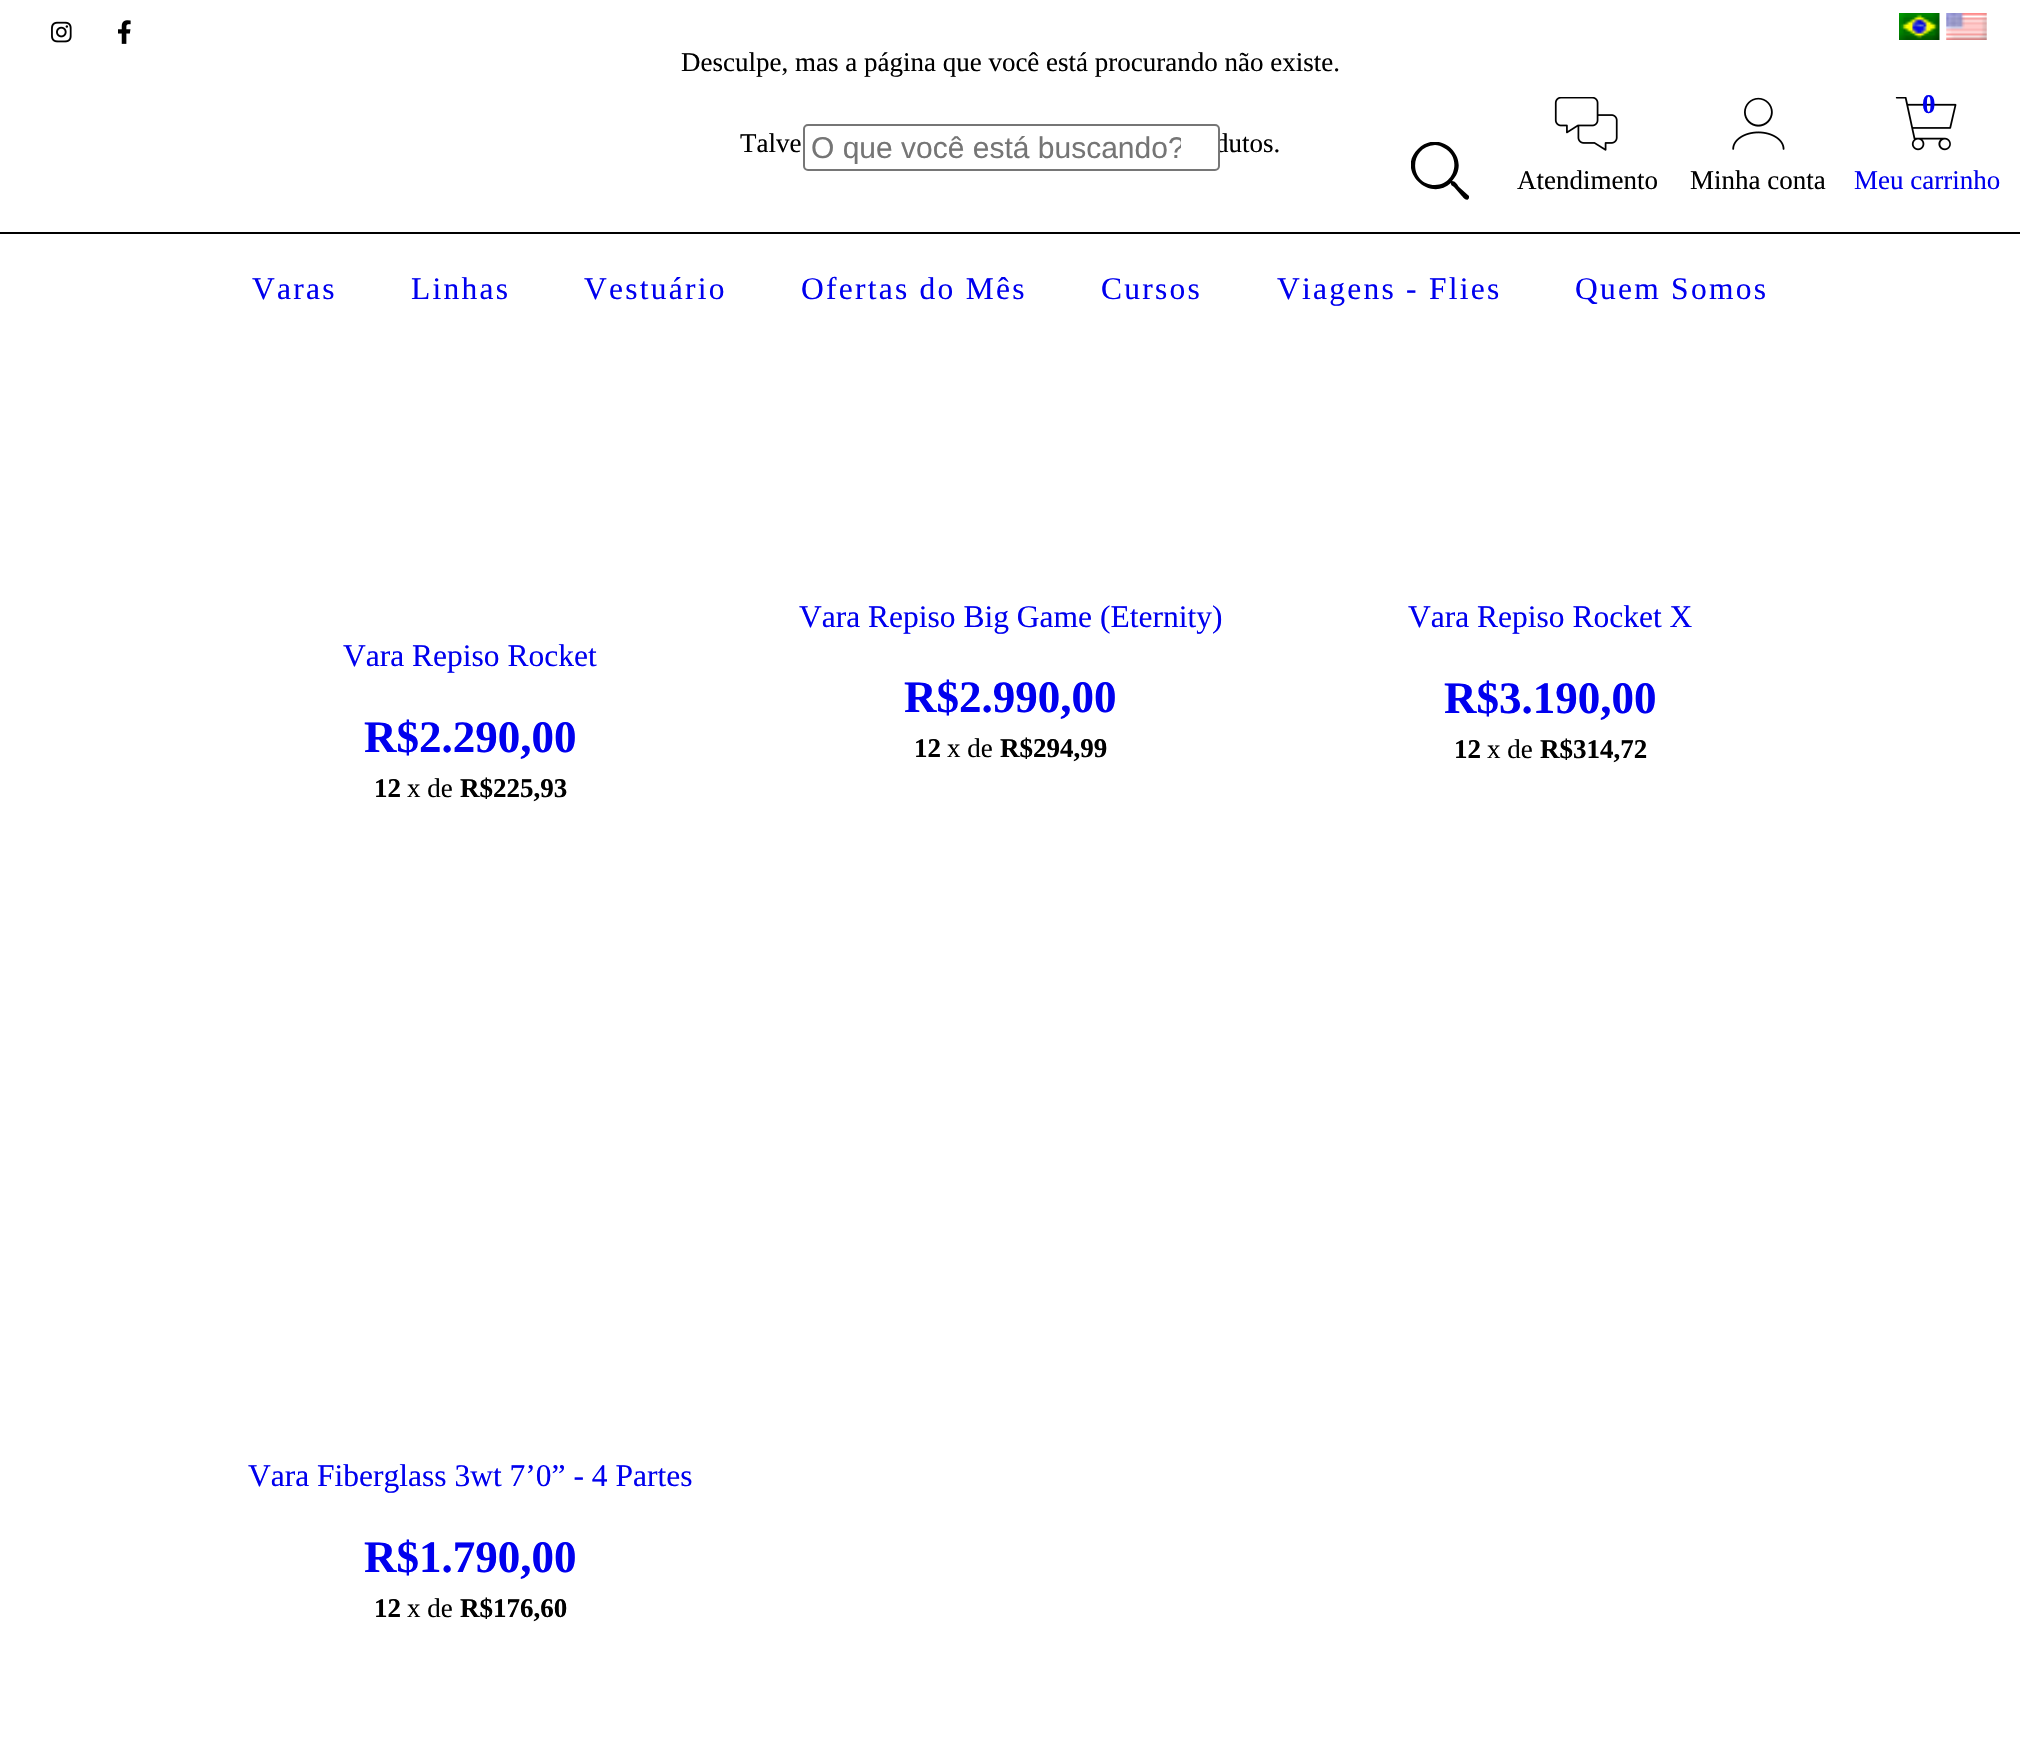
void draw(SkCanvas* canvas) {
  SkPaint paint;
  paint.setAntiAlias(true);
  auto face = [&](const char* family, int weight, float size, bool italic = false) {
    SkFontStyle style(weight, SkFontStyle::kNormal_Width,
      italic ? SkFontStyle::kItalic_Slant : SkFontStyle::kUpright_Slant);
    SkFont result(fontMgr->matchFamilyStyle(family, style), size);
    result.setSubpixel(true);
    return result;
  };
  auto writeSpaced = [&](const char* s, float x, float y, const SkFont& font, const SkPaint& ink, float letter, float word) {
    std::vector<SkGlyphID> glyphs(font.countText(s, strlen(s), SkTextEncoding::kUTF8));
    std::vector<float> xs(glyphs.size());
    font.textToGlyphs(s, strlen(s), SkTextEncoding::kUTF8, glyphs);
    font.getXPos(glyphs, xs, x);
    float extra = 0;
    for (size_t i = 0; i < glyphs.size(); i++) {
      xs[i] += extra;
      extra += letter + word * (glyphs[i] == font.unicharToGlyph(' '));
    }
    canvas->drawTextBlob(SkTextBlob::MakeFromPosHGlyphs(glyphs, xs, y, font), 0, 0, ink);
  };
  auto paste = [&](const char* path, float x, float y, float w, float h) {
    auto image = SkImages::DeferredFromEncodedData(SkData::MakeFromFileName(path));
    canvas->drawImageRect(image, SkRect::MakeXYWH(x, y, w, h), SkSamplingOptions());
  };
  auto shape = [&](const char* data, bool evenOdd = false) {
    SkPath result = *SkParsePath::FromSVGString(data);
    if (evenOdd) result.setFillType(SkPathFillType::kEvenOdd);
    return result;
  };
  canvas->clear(0xffffffff);
  paste("img/1.png", 51, 21, 21, 22);
  paste("img/2.png", 118, 20, 13, 24);
  paste("img/3.png", 1899, 13, 41, 27);
  paste("img/4.png", 1946, 13, 41, 27);
  canvas->save();
  canvas->clipRect(SkRect::MakeXYWH(1411, 142, 60, 60));
  paint.setColor(0xff000000);
  canvas->drawPath(shape("M1469 196L1459 187C1457 184 1455 181 1452 181C1473 159 1440 127 1418 149C1396 170 1429 203 1451 183C1451 185 1451 185 1454 187L1461 195C1462 196 1467 203 1469 198ZM1435 185C1409 185 1408 147 1435 145C1438 145 1441 146 1444 148C1462 157 1455 185 1435 185Z"), paint);
  canvas->restore();
  paste("img/5.png", 1554, 97, 64, 54);
  paste("img/6.png", 1732, 97, 53, 53);
  paste("img/7.png", 1895, 97, 62, 54);
  canvas->drawRect(SkRect::MakeXYWH(0, 232, 2020, 2), paint);
  auto f0 = face("Liberation Serif", 400, 27);
  {
    const struct { const char* s; float x, y; } items[] = {
      {"Desculpe, mas a página que você está procurando não existe.", 681, 71},
      {"Talve", 740, 152},
      {"dutos.", 1215, 152},
    };
    for (auto [s, x, y] : items) {
      canvas->drawString(s, x, y, f0, paint);
    }
  }
  auto f1 = face("Liberation Serif", 400, 31.5f);
  paint.setColor(0xff0000ee);
  canvas->drawString("Vara Repiso Rocket", 343, 666, f1, paint);
  auto f2 = face("Liberation Serif", 700, 45);
  canvas->drawString("R$2.290,00", 364, 752, f2, paint);
  auto f3 = face("Liberation Serif", 700, 27);
  paint.setColor(0xff000000);
  canvas->drawString("12", 374, 797, f3, paint);
  canvas->drawString("x de", 407, 797, f0, paint);
  canvas->drawString("R$225,93", 460, 797, f3, paint);
  paint.setColor(0xff0000ee);
  canvas->drawString("Vara Repiso Big Game (Eternity)", 799, 627, f1, paint);
  canvas->drawString("R$2.990,00", 904, 712, f2, paint);
  paint.setColor(0xff000000);
  canvas->drawString("12", 914, 757, f3, paint);
  canvas->drawString("x de", 947, 757, f0, paint);
  canvas->drawString("R$294,99", 1000, 757, f3, paint);
  paint.setColor(0xff0000ee);
  canvas->drawString("Vara Repiso Rocket X", 1408, 627, f1, paint);
  canvas->drawString("R$3.190,00", 1444, 713, f2, paint);
  paint.setColor(0xff000000);
  canvas->drawString("12", 1454, 758, f3, paint);
  canvas->drawString("x de", 1487, 758, f0, paint);
  canvas->drawString("R$314,72", 1540, 758, f3, paint);
  paint.setColor(0xff0000ee);
  canvas->drawString("Vara Fiberglass 3wt 7’0” - 4 Partes", 248, 1486, f1, paint);
  canvas->drawString("R$1.790,00", 364, 1572, f2, paint);
  paint.setColor(0xff000000);
  canvas->drawString("12", 374, 1617, f3, paint);
  canvas->drawString("x de", 407, 1617, f0, paint);
  canvas->drawString("R$176,60", 460, 1617, f3, paint);
  paint.setColor(0xffffffff);
  canvas->drawRoundRect(SkRect::MakeXYWH(804, 125, 415, 45), 4, 4, paint);
  paint.setStroke(true);
  paint.setStrokeWidth(2);
  paint.setColor(0xff767676);
  canvas->drawRoundRect(SkRect::MakeXYWH(804, 125, 415, 45), 4, 4, paint);
  canvas->save();
  canvas->clipRect(SkRect::MakeXYWH(812, 131, 369, 33));
  auto f4 = face("Liberation Sans", 400, 30);
  paint.setStroke(false);
  paint.setColor(0xff757575);
  canvas->drawString("O que você está buscando?", 811, 158, f4, paint);
  canvas->restore();
  paint.setColor(0xff000000);
  canvas->drawString("Atendimento", 1517, 189, f0, paint);
  canvas->drawString("Minha conta", 1690, 189, f0, paint);
  paint.setColor(0xff0000ee);
  canvas->drawString("0", 1922, 113, f3, paint);
  canvas->drawString("Meu carrinho", 1854, 189, f0, paint);
  {
    const struct { const char* s; float x, y; } items[] = {
      {"Varas", 252, 299},
      {"Linhas", 411, 299},
      {"Vestuário", 584, 299},
      {"Ofertas do Mês", 801, 299},
      {"Cursos", 1101, 299},
      {"Viagens - Flies", 1277, 299},
      {"Quem Somos", 1575, 299},
    };
    for (auto [s, x, y] : items) {
      writeSpaced(s, x, y, f1, paint, 2.25f, 0);
    }
  }
}
